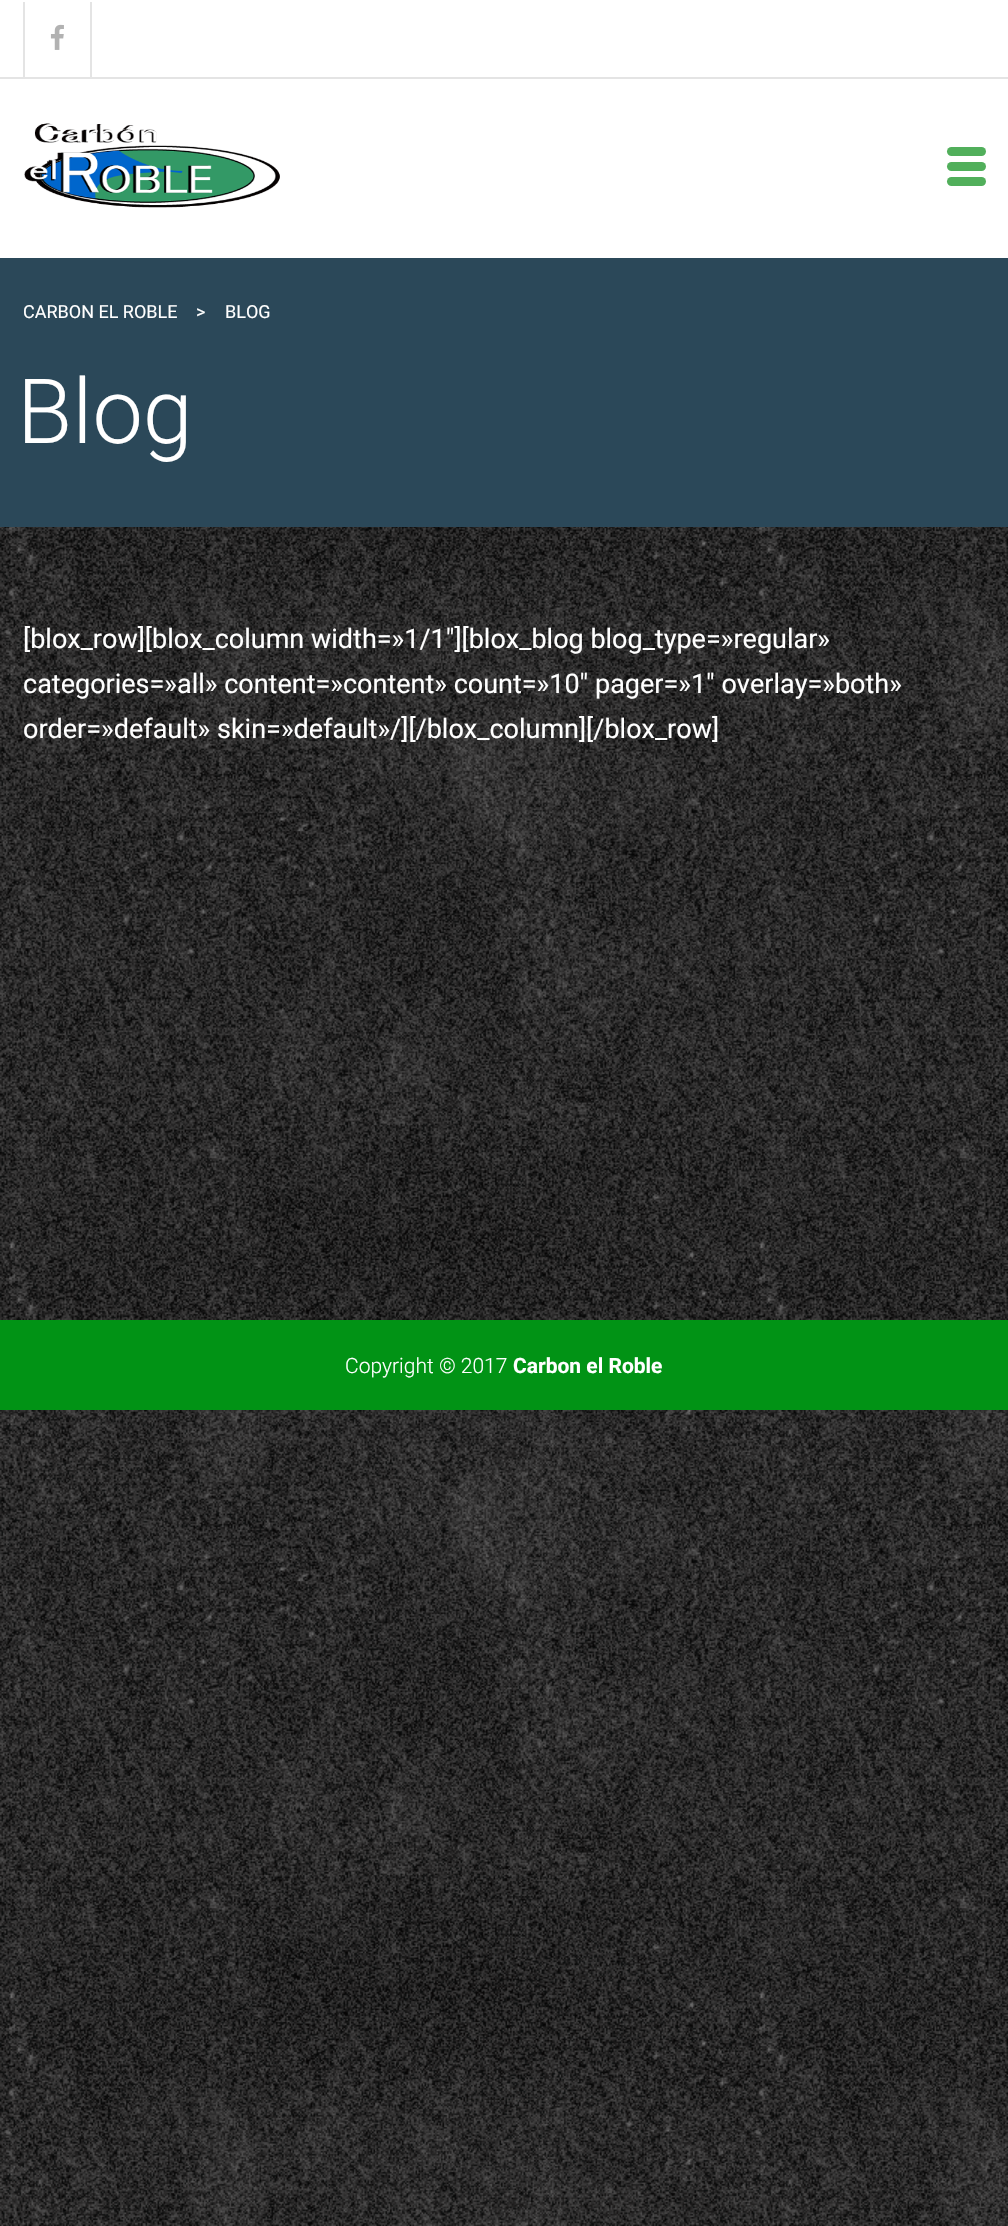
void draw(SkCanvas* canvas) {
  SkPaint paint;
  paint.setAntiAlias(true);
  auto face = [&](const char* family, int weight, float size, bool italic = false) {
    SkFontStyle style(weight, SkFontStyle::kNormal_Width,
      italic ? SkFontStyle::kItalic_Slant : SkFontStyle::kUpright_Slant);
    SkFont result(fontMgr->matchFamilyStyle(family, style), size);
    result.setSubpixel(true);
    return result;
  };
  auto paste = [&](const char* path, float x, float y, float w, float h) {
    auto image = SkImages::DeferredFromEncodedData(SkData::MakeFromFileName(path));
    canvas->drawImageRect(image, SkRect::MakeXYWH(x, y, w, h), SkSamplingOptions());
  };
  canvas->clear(0xffffffff);
  paste("img/1.png", 0, 527, 1008, 1699);
  {
    const struct { float x, y, w, h; SkColor color; } items[] = {
      {0, 77, 1008, 2, 0xffe4e4e4},
      {90, 2, 2, 75, 0xffe4e4e4},
      {23, 2, 2, 75, 0xffe4e4e4},
    };
    for (auto [x, y, w, h, color] : items) {
      paint.setColor(color);
      canvas->drawRect(SkRect::MakeXYWH(x, y, w, h), paint);
    }
  }
  paste("img/2.png", 50, 24, 14, 26);
  paste("img/3.png", 24, 123, 256, 85);
  paint.setColor(0xff51af5b);
  canvas->drawRoundRect(SkRect::MakeXYWH(947, 162, 39, 9), 4.5f, 4.5f, paint);
  canvas->drawRoundRect(SkRect::MakeXYWH(947, 147, 39, 9), 4.5f, 4.5f, paint);
  canvas->drawRoundRect(SkRect::MakeXYWH(947, 177, 39, 9), 4.5f, 4.5f, paint);
  paint.setColor(0xff2b4859);
  canvas->drawRect(SkRect::MakeXYWH(0, 258, 1008, 269), paint);
  paint.setColor(0xff019315);
  canvas->drawRect(SkRect::MakeXYWH(0, 1320, 1008, 90), paint);
  auto f0 = face("Roboto", 400, 18);
  paint.setColor(0xffffffff);
  {
    const struct { const char* s; float x, y; } items[] = {
      {"CARBON EL ROBLE", 23, 318},
      {">", 196, 318},
      {"BLOG", 225, 318},
    };
    for (auto [s, x, y] : items) {
      canvas->drawString(s, x, y, f0, paint);
    }
  }
  auto f1 = face("Roboto", 300, 90);
  canvas->drawString("Blog", 17, 443, f1, paint);
  auto f2 = face("Roboto", 400, 27);
  {
    const struct { const char* s; float x, y; } items[] = {
      {"[blox_row][blox_column width=»1/1″][blox_blog blog_type=»regular»", 23, 648},
      {"categories=»all» content=»content» count=»10″ pager=»1″ overlay=»both»", 23, 693},
      {"order=»default» skin=»default»/][/blox_column][/blox_row]", 23, 738},
    };
    for (auto [s, x, y] : items) {
      canvas->drawString(s, x, y, f2, paint);
    }
  }
  auto f3 = face("Roboto", 300, 21);
  canvas->drawString("Copyright © 2017", 345, 1373, f3, paint);
  auto f4 = face("Roboto", 700, 21);
  canvas->drawString("Carbon el Roble", 513, 1373, f4, paint);
}
